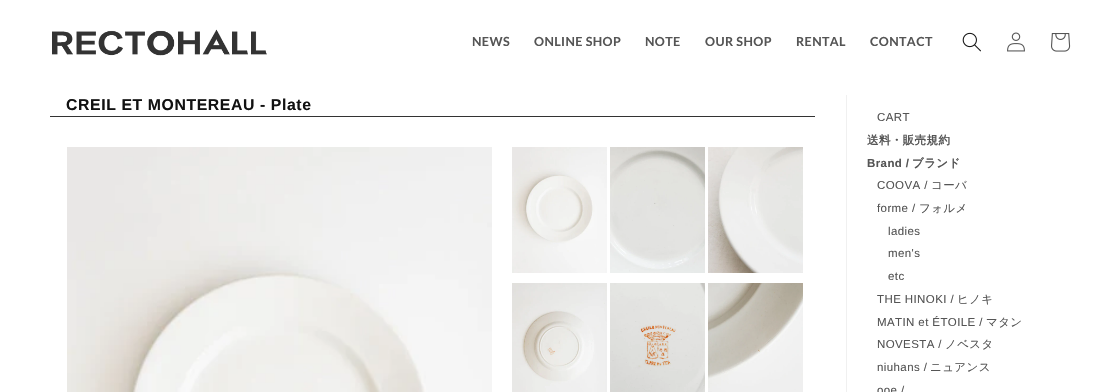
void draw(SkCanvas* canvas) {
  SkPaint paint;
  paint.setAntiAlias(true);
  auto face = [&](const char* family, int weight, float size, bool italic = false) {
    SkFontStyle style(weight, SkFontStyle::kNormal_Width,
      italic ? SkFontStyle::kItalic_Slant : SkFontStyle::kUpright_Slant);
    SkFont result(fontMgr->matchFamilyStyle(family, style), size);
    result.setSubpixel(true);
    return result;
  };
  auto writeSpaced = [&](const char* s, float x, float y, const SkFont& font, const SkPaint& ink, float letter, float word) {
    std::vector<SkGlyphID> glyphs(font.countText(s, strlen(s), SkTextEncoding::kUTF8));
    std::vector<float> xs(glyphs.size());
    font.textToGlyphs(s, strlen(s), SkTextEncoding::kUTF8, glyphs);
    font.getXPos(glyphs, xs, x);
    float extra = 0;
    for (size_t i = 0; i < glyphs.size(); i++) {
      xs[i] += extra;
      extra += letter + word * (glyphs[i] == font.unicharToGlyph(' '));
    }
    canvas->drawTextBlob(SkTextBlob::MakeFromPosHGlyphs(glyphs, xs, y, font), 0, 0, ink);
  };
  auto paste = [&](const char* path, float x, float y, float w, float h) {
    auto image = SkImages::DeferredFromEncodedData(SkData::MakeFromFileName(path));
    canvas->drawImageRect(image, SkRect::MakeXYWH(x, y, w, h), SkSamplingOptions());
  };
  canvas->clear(0xffffffff);
  paste("img/1.png", 52, 29, 215, 27);
  paste("img/2.png", 962, 32, 19, 20);
  paste("img/3.png", 1007, 32, 18, 20);
  paste("img/4.png", 1051, 33, 20, 19);
  paint.setColor(0xff333333);
  canvas->drawRect(SkRect::MakeXYWH(50, 116, 765, 1), paint);
  paste("img/5.png", 67, 147, 425, 245);
  paste("img/6.png", 512, 147, 95, 126);
  paste("img/7.png", 610, 147, 95, 126);
  paste("img/8.png", 708, 147, 95, 126);
  paste("img/9.png", 512, 283, 95, 109);
  paste("img/10.png", 610, 283, 95, 109);
  paste("img/11.png", 708, 283, 95, 109);
  paint.setColor(0xfff0f0f0);
  canvas->drawRect(SkRect::MakeXYWH(846, 95, 1, 297), paint);
  auto f0 = face("Lato", 700, 12.5f);
  paint.setColor(0xff555555);
  {
    const struct { const char* s; float x, y; } items[] = {
      {"NEWS", 472, 46},
      {"ONLINE SHOP", 534, 46},
      {"NOTE", 645, 46},
      {"OUR SHOP", 705, 46},
      {"RENTAL", 796, 46},
      {"CONTACT", 870, 46},
    };
    for (auto [s, x, y] : items) {
      writeSpaced(s, x, y, f0, paint, 0.4f, 0);
    }
  }
  auto f1 = face("Liberation Sans", 700, 15.8f);
  paint.setColor(0xff121212);
  writeSpaced("CREIL ET MONTEREAU - Plate", 66, 110, f1, paint, 0.6f, 0);
  auto f2 = face("Liberation Sans", 400, 11.5f);
  paint.setColor(0xff555555);
  writeSpaced("CART", 877, 121, f2, paint, 0.4f, 0);
  auto f3 = face("WenQuanYi Zen Hei", 700, 11.5f);
  writeSpaced("送料・販売規約", 867, 144, f3, paint, 0.4f, 0);
  auto f4 = face("Liberation Sans", 700, 11.5f);
  writeSpaced("Brand /", 867, 167, f4, paint, 0.4f, 0);
  writeSpaced("ブランド", 912, 167, f3, paint, 0.4f, 0);
  writeSpaced("COOVA /", 877, 189, f2, paint, 0.4f, 0);
  auto f5 = face("WenQuanYi Zen Hei", 500, 11.5f);
  writeSpaced("コーバ", 931, 189, f5, paint, 0.4f, 0);
  writeSpaced("forme /", 877, 212, f2, paint, 0.4f, 0);
  writeSpaced("フォルメ", 919, 212, f5, paint, 0.4f, 0);
  {
    const struct { const char* s; float x, y; } items[] = {
      {"ladies", 888, 235},
      {"men's", 888, 257},
      {"etc", 888, 280},
      {"THE HINOKI /", 877, 303},
    };
    for (auto [s, x, y] : items) {
      writeSpaced(s, x, y, f2, paint, 0.4f, 0);
    }
  }
  writeSpaced("ヒノキ", 957, 303, f5, paint, 0.4f, 0);
  writeSpaced("MATIN et ÉTOILE /", 877, 326, f2, paint, 0.4f, 0);
  writeSpaced("マタン", 986, 326, f5, paint, 0.4f, 0);
  writeSpaced("NOVESTA /", 877, 348, f2, paint, 0.4f, 0);
  writeSpaced("ノベスタ", 945, 348, f5, paint, 0.4f, 0);
  writeSpaced("niuhans /", 877, 371, f2, paint, 0.4f, 0);
  writeSpaced("ニュアンス", 930, 371, f5, paint, 0.4f, 0);
  writeSpaced("ooe /", 877, 394, f2, paint, 0.4f, 0);
}
